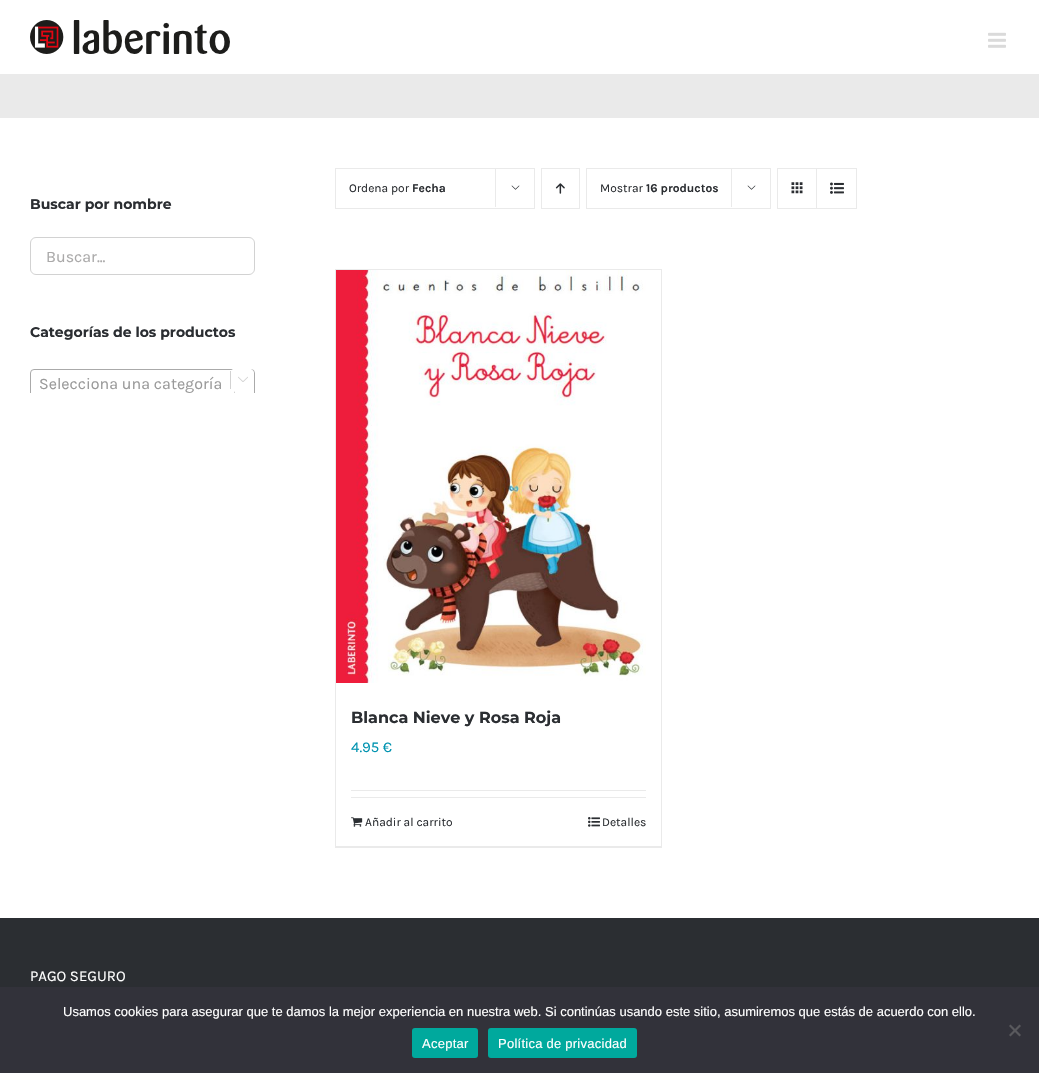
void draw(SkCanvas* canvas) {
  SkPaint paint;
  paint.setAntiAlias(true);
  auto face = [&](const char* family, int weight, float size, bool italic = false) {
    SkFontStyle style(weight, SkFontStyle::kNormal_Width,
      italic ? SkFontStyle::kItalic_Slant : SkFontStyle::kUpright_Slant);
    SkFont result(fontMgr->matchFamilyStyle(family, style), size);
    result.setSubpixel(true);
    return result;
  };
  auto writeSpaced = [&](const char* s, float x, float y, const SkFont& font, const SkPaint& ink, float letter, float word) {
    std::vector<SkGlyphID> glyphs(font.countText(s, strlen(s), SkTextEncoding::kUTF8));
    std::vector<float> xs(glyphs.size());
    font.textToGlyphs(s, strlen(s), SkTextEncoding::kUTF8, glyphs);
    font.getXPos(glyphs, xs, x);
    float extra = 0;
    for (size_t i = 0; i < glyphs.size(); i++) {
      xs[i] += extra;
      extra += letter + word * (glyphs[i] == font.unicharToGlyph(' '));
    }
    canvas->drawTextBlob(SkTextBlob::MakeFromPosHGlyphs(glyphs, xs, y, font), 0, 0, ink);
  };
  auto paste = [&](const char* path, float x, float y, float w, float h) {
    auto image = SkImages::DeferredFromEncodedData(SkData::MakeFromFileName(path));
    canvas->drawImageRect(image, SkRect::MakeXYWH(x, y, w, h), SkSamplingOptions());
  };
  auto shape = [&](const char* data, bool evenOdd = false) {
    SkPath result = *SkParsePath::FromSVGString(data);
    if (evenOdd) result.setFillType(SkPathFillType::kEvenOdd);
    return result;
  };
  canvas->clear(0xffffffff);
  paste("img/1.png", 30, 20, 200, 34);
  paste("img/2.png", 988, 32, 18, 16);
  paint.setColor(0xffeaeaea);
  canvas->drawRect(SkRect::MakeXYWH(0, 74, 1039, 44), paint);
  paint.setStroke(true);
  paint.setStrokeWidth(1);
  paint.setColor(0xffd2d2d2);
  canvas->drawRoundRect(SkRect::MakeXYWH(30.5f, 237.5f, 224, 37), 5.5f, 5.5f, paint);
  canvas->save();
  canvas->clipRect(SkRect::MakeXYWH(30, 365, 225, 28));
  paint.setColor(0xffaaaaaa);
  canvas->drawRoundRect(SkRect::MakeXYWH(30.5f, 369.5f, 224, 27), 3.5f, 3.5f, paint);
  canvas->restore();
  paint.setStroke(false);
  paint.setColor(0xffd2d2d2);
  canvas->drawRect(SkRect::MakeXYWH(234, 391, 1, 2), paint);
  paint.setColor(0xffffffff);
  canvas->drawRoundRect(SkRect::MakeXYWH(230, 368, 24, 24), 6, 6, paint);
  paint.setColor(0xffd2d2d2);
  canvas->drawRect(SkRect::MakeXYWH(230, 371, 1, 18), paint);
  paste("img/3.png", 238, 376, 10, 6);
  paint.setStroke(true);
  paint.setColor(0xffeaeaea);
  canvas->drawRect(SkRect::MakeXYWH(335.5f, 168.5f, 199, 40), paint);
  paint.setStroke(false);
  canvas->drawRect(SkRect::MakeXYWH(495, 168, 1, 39), paint);
  paste("img/4.png", 511, 185, 9, 5);
  paint.setStroke(true);
  canvas->drawRect(SkRect::MakeXYWH(541.5f, 168.5f, 38, 40), paint);
  paste("img/5.png", 555, 183, 10, 11);
  canvas->drawRect(SkRect::MakeXYWH(586.5f, 168.5f, 184, 40), paint);
  paint.setStroke(false);
  canvas->drawRect(SkRect::MakeXYWH(731, 168, 1, 39), paint);
  paste("img/4.png", 747, 185, 9, 5);
  paint.setStroke(true);
  canvas->drawRect(SkRect::MakeXYWH(777.5f, 168.5f, 79, 40), paint);
  paint.setStroke(false);
  canvas->drawRect(SkRect::MakeXYWH(816, 169, 1, 39), paint);
  paste("img/6.png", 791, 182, 12, 12);
  paste("img/7.png", 830, 182, 14, 12);
  {
    const struct { float x, y, w, h; SkColor color; } items[] = {
      {335, 269, 327, 1, 0xffeaeaea},
      {661, 269, 1, 579, 0xffeaeaea},
      {335, 846, 327, 2, 0xffeaeaea},
      {335, 269, 1, 579, 0xffeaeaea},
    };
    for (auto [x, y, w, h, color] : items) {
      paint.setColor(color);
      canvas->drawRect(SkRect::MakeXYWH(x, y, w, h), paint);
    }
  }
  paste("img/8.png", 336, 270, 310, 413);
  canvas->drawRect(SkRect::MakeXYWH(351, 790, 295, 1), paint);
  canvas->drawRect(SkRect::MakeXYWH(351, 797, 295, 1), paint);
  paste("img/9.png", 351, 817, 12, 10);
  paste("img/10.png", 588, 817, 12, 10);
  paint.setColor(0xff2b2e32);
  canvas->drawRect(SkRect::MakeXYWH(0, 918, 1039, 69), paint);
  paint.setColor(0xff32323a);
  canvas->drawRect(SkRect::MakeXYWH(0, 987, 1039, 86), paint);
  paint.setColor(0xff59595d);
  canvas->drawPath(shape("M1019.5 1024.5L1021 1026L1010.5 1036.5L1009 1035Z"), paint);
  canvas->drawPath(shape("M1009 1026L1010.5 1024.5L1021 1035L1019.5 1036.5Z"), paint);
  paint.setColor(0xff00a99d);
  canvas->drawRoundRect(SkRect::MakeXYWH(412, 1028, 66, 30), 3, 3, paint);
  canvas->drawRoundRect(SkRect::MakeXYWH(488, 1028, 149, 30), 3, 3, paint);
  auto f0 = face("Montserrat", 700, 14);
  paint.setColor(0xff2b2e32);
  canvas->drawString("Buscar por nombre", 30, 209, f0, paint);
  auto f1 = face("Karla", 400, 16);
  paint.setColor(0xffaaa9a9);
  canvas->drawString("Buscar...", 46, 262, f1, paint);
  paint.setColor(0xff2b2e32);
  canvas->drawString("Categorías de los productos", 30, 337, f0, paint);
  paint.setColor(0xff999999);
  canvas->drawString("Selecciona una categoría", 39, 389, f1, paint);
  auto f2 = face("Karla", 400, 12);
  paint.setColor(0xff2b2e32);
  canvas->drawString("Ordena por", 349, 192, f2, paint);
  auto f3 = face("Karla", 700, 12);
  canvas->drawString("Fecha", 412, 192, f3, paint);
  canvas->drawString("Mostrar", 600, 192, f2, paint);
  canvas->drawString("16 productos", 646, 192, f3, paint);
  auto f4 = face("Montserrat", 700, 16);
  canvas->drawString("Blanca Nieve y Rosa Roja", 351, 723, f4, paint);
  auto f5 = face("Karla", 400, 15);
  paint.setColor(0xff0093b0);
  canvas->drawString("4.95 €", 351, 752, f5, paint);
  paint.setColor(0xff2b2e32);
  canvas->drawString("Añadir al carrito", 365, 826, f2, paint);
  canvas->drawString("Detalles", 602, 826, f2, paint);
  paint.setColor(0xffffffff);
  canvas->drawString("PAGO SEGURO", 30, 981, f5, paint);
  auto f6 = face("Liberation Sans", 400, 13);
  canvas->drawString("Usamos cookies para asegurar que te damos la mejor experiencia en nuestra web. Si continúas usando este sitio, asumiremos que estás de acuerdo con ello.", 63, 1016, f6, paint);
  writeSpaced("Aceptar", 422, 1048, f6, paint, 0.25f, 0);
  writeSpaced("Política de privacidad", 498, 1048, f6, paint, 0.25f, 0);
}
